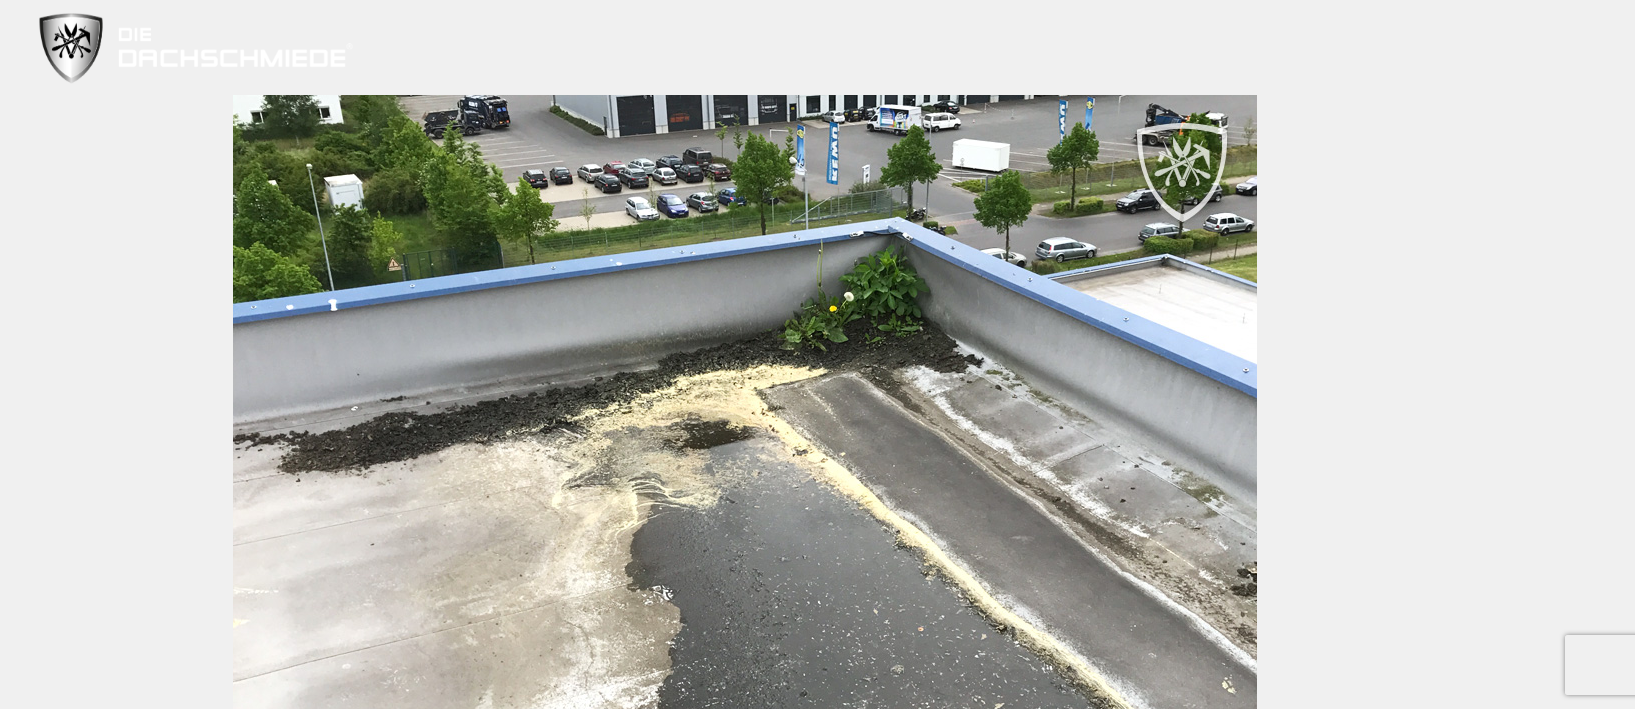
void draw(SkCanvas* canvas) {
  SkPaint paint;
  paint.setAntiAlias(true);
  auto paste = [&](const char* path, float x, float y, float w, float h) {
    auto image = SkImages::DeferredFromEncodedData(SkData::MakeFromFileName(path));
    canvas->drawImageRect(image, SkRect::MakeXYWH(x, y, w, h), SkSamplingOptions());
  };
  auto shape = [&](const char* data, bool evenOdd = false) {
    SkPath result = *SkParsePath::FromSVGString(data);
    if (evenOdd) result.setFillType(SkPathFillType::kEvenOdd);
    return result;
  };
  canvas->clear(0xfff0f0f0);
  paste("img/1.png", 39, 13, 314, 71);
  paste("img/2.png", 233, 95, 1024, 614);
  canvas->save();
  canvas->clipPath(shape("M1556 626H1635V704H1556ZM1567 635H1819C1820 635 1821 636 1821 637V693C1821 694 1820 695 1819 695H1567C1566 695 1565 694 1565 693V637C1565 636 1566 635 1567 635Z", true), true);
  paint.setColor(0xff808080);
  paint.setMaskFilter(SkMaskFilter::MakeBlur(kNormal_SkBlurStyle, 2.5f));
  canvas->drawRoundRect(SkRect::MakeXYWH(1565, 635, 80, 60), 2, 2, paint);
  paint.setMaskFilter(nullptr);
  canvas->restore();
}
